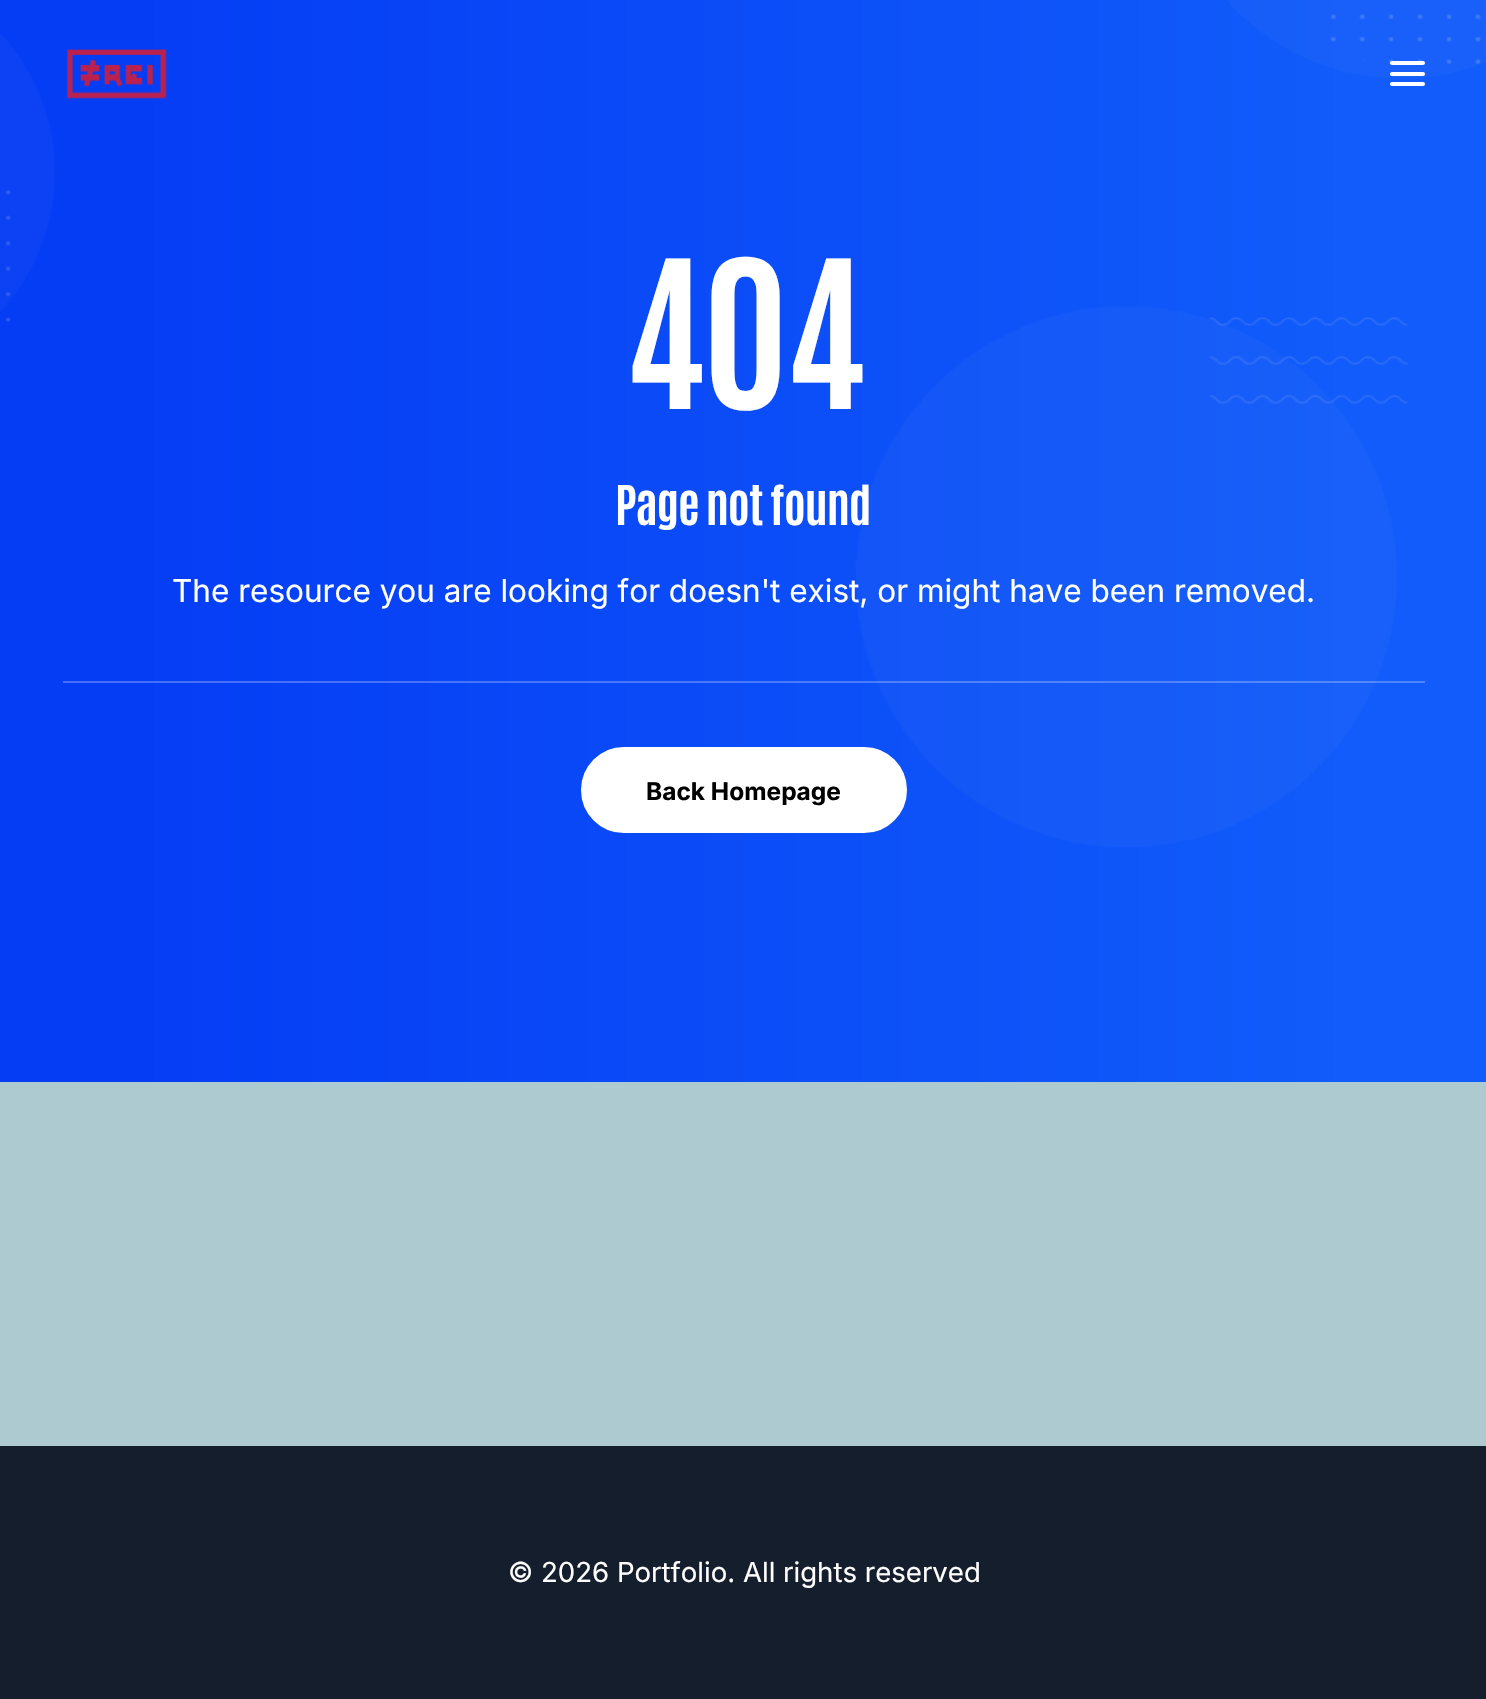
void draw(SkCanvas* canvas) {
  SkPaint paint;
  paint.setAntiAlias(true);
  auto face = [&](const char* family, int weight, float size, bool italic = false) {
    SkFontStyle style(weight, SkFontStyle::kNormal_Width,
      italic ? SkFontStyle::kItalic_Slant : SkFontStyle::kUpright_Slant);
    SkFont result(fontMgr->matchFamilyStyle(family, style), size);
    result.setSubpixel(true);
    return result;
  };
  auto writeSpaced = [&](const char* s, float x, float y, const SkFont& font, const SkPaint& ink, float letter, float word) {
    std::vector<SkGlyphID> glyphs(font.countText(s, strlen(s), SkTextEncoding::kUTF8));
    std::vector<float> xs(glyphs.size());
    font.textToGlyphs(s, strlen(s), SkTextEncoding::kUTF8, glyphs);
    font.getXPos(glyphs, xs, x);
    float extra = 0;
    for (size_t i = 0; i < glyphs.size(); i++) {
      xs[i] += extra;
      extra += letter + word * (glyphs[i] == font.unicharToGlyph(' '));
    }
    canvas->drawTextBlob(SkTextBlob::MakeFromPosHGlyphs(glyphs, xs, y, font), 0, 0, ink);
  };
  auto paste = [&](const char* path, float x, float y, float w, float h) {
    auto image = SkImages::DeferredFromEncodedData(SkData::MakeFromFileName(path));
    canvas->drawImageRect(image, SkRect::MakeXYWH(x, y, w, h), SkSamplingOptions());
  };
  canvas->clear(0xffaccacf);
  {
    const SkColor colors[] = {0xff115cfa, 0xff053df5};
    const float stops[] = {0.09f, 0.91f};
    const SkPoint ends[] = {{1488, 541}, {0, 541}};
    paint.setShader(SkGradientShader::MakeLinear(ends, colors, stops, 2, SkTileMode::kClamp));
    paint.setAlpha(255);
  }
  canvas->drawRect(SkRect::MakeXYWH(0, 0, 1486, 1082), paint);
  paste("img/2.png", 0, 0, 1486, 847);
  paste("img/1.png", 67, 49, 100, 50);
  paint.setShader(nullptr);
  paint.setColor(0xffffffff);
  canvas->drawRoundRect(SkRect::MakeXYWH(1390, 72, 35, 4), 2, 2, paint);
  canvas->drawRoundRect(SkRect::MakeXYWH(1390, 61, 35, 4), 2, 2, paint);
  canvas->drawRoundRect(SkRect::MakeXYWH(1390, 82, 35, 4), 2, 2, paint);
  paint.setColor(0x40ffffff);
  canvas->drawRect(SkRect::MakeXYWH(63, 681, 1362, 2), paint);
  paint.setColor(0xffffffff);
  canvas->drawRoundRect(SkRect::MakeXYWH(582, 748, 324, 84), 42, 42, paint);
  paint.setStroke(true);
  paint.setStrokeWidth(2);
  canvas->drawRoundRect(SkRect::MakeXYWH(582, 748, 324, 84), 42, 42, paint);
  paint.setStroke(false);
  paint.setColor(0xff151e2d);
  canvas->drawRect(SkRect::MakeXYWH(0, 1446, 1486, 253), paint);
  auto f0 = face("Antonio", 700, 175);
  paint.setColor(0xffffffff);
  writeSpaced("404", 625, 409, f0, paint, -3.5f, 0);
  auto f1 = face("Antonio", 700, 46.5f);
  writeSpaced("Page not found", 615, 525, f1, paint, -1, 0);
  auto f2 = face("Inter", 400, 31.5f);
  canvas->drawString("The resource you are looking for doesn't exist, or might have been removed.", 172, 602, f2, paint);
  auto f3 = face("Inter", 700, 24.5f);
  paint.setColor(0xff000000);
  canvas->drawString("Back Homepage", 646, 800, f3, paint);
  auto f4 = face("Inter", 400, 27.6f);
  paint.setColor(0xffffffff);
  canvas->drawString("© 2026 Portfolio. All rights reserved", 508, 1582, f4, paint);
}
